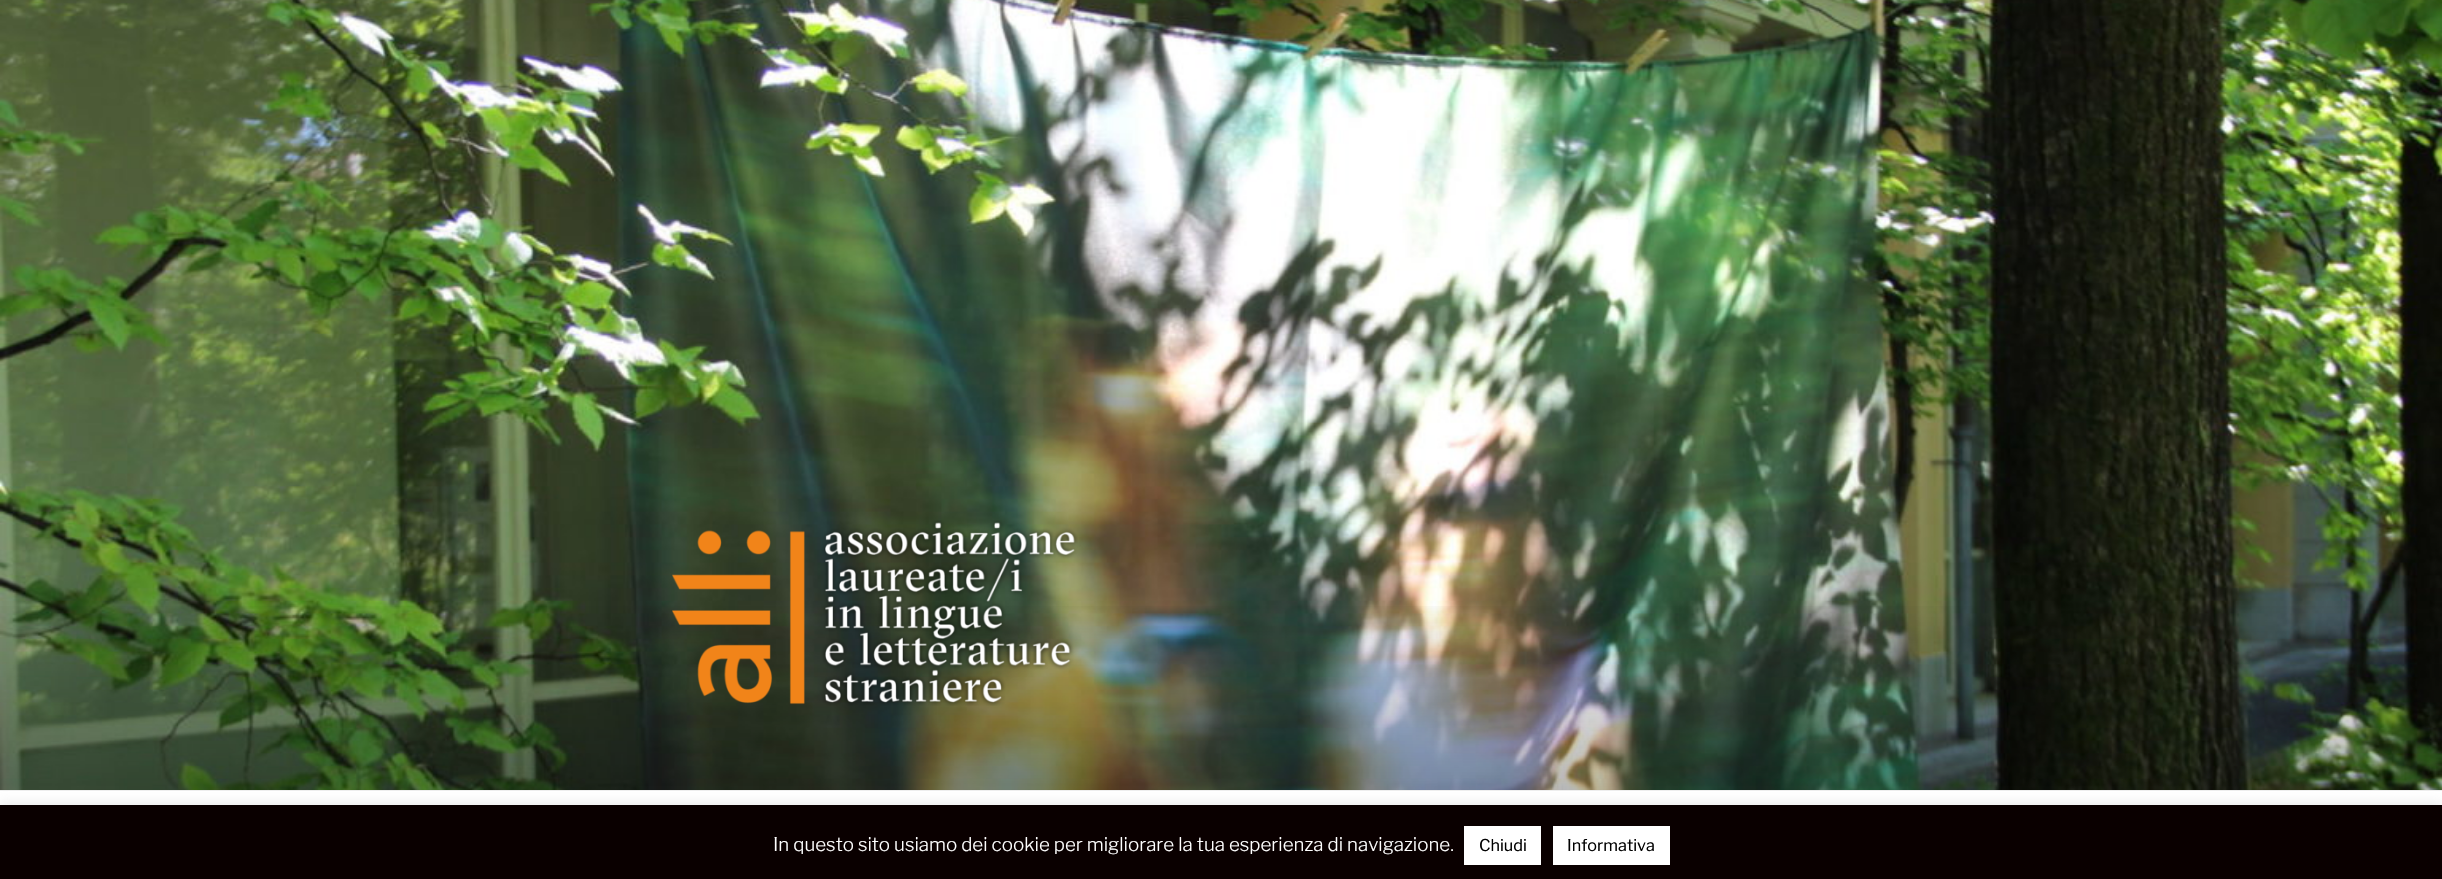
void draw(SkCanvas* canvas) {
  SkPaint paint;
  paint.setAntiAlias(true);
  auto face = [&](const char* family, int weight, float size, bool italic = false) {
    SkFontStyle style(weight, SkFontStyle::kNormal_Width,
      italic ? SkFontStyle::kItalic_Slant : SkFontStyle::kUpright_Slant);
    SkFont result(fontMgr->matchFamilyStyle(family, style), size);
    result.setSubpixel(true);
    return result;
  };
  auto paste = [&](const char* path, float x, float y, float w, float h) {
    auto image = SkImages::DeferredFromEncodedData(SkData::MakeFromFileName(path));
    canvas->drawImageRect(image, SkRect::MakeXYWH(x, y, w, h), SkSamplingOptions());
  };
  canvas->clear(0xffffffff);
  paste("img/1.png", 0, 0, 2442, 790);
  {
    const SkColor colors[] = {0x00000000, 0x4d000000, 0x4d000000};
    const float stops[] = {0, 0.75f, 1};
    const SkPoint ends[] = {{1221, 590}, {1221, 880}};
    paint.setShader(SkGradientShader::MakeLinear(ends, colors, stops, 3, SkTileMode::kClamp));
    paint.setAlpha(255);
  }
  canvas->drawRect(SkRect::MakeXYWH(0, 606, 2442, 184), paint);
  paste("img/2.png", 672, 520, 406, 186);
  paint.setShader(nullptr);
  paint.setColor(0xffeeeeee);
  canvas->drawRect(SkRect::MakeXYWH(0, 790, 2442, 1), paint);
  paint.setColor(0x4dacabab);
  paint.setMaskFilter(SkMaskFilter::MakeBlur(kNormal_SkBlurStyle, 6));
  canvas->drawRect(SkRect::MakeXYWH(0, 804, 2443, 75), paint);
  paint.setMaskFilter(nullptr);
  {
    const struct { float x, y, w, h; SkColor color; } items[] = {
      {0, 805, 2442, 74, 0xff0a0000},
      {1464, 826, 77, 39, 0xffffffff},
      {1553, 826, 117, 39, 0xffffffff},
    };
    for (auto [x, y, w, h, color] : items) {
      paint.setColor(color);
      canvas->drawRect(SkRect::MakeXYWH(x, y, w, h), paint);
    }
  }
  auto f0 = face("Libre Franklin", 100, 18.75f);
  canvas->drawString("In questo sito usiamo dei cookie per migliorare la tua esperienza di navigazione.", 773, 851, f0, paint);
  auto f1 = face("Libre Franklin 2", 100, 16.25f);
  paint.setColor(0xff000000);
  canvas->drawString("Chiudi", 1479, 851, f1, paint);
  canvas->drawString("Informativa", 1567, 851, f1, paint);
}
